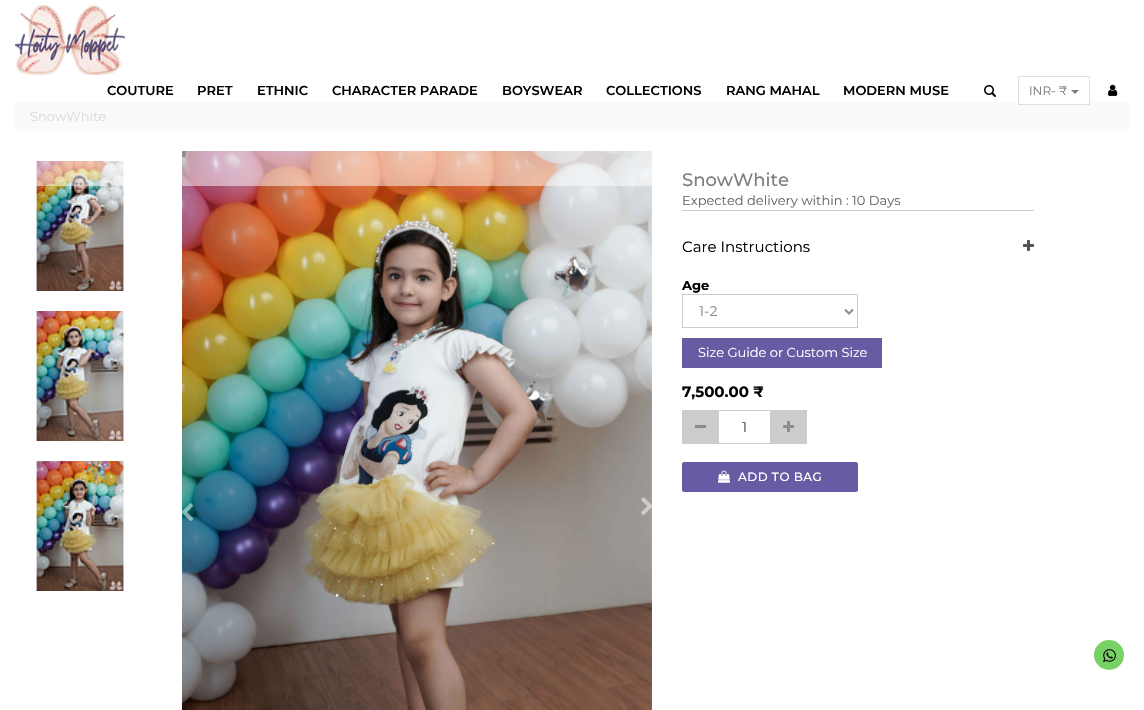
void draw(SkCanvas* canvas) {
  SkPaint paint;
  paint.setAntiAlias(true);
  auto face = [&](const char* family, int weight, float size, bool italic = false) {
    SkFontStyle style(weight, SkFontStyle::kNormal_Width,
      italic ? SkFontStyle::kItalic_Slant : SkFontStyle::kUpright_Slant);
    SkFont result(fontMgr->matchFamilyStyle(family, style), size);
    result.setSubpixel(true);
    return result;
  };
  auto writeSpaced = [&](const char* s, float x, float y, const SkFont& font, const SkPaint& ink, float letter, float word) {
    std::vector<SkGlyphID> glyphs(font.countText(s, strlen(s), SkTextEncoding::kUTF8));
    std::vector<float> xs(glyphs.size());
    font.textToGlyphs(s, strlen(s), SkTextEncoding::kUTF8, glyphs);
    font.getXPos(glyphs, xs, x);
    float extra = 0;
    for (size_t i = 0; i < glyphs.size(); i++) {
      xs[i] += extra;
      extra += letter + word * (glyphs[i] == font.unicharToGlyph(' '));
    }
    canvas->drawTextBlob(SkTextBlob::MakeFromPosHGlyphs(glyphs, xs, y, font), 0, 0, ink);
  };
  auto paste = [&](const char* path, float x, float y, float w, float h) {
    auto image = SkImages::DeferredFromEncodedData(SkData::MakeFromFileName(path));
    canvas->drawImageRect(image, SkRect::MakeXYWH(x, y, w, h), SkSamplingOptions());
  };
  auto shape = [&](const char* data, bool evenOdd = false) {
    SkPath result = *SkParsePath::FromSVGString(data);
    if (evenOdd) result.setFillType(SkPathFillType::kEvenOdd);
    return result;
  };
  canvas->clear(0xffffffff);
  paste("img/1.png", 15, 5, 110, 70);
  paste("img/2.png", 984, 85, 12, 12);
  paste("img/3.png", 1108, 84, 10, 12);
  paint.setColor(0xfff5f5f5);
  canvas->drawRoundRect(SkRect::MakeXYWH(15, 102, 1114, 29), 4, 4, paint);
  paste("img/4.png", 36, 161, 88, 130);
  paste("img/5.png", 36, 311, 88, 130);
  paste("img/6.png", 36, 461, 88, 130);
  paste("img/7.png", 182, 151, 470, 559);
  paste("img/8.png", 182, 503, 12, 19);
  paste("img/9.png", 641, 497, 11, 18);
  paint.setColor(0xffcccccc);
  canvas->drawRect(SkRect::MakeXYWH(682, 210, 352, 1), paint);
  paste("img/10.png", 1023, 240, 11, 11);
  paint.setStroke(true);
  paint.setStrokeWidth(1);
  canvas->drawRect(SkRect::MakeXYWH(682.5f, 294.5f, 175, 33), paint);
  paint.setStrokeWidth(2);
  paint.setColor(0xff8c8c8c);
  canvas->drawPath(shape("M845 309.5L849 313.5L853 309.5"), paint);
  paint.setStroke(false);
  {
    const struct { float x, y, w, h; SkColor color; } items[] = {
      {682, 338, 200, 30, 0xff695ba3},
      {682, 410, 36, 34, 0xffcccccc},
      {695, 425, 11, 3, 0xff8c8c8c},
    };
    for (auto [x, y, w, h, color] : items) {
      paint.setColor(color);
      canvas->drawRect(SkRect::MakeXYWH(x, y, w, h), paint);
    }
  }
  paint.setStroke(true);
  paint.setStrokeWidth(1);
  paint.setColor(0xffcccccc);
  canvas->drawRect(SkRect::MakeXYWH(718.5f, 410.5f, 52, 33), paint);
  paint.setStroke(false);
  canvas->drawRect(SkRect::MakeXYWH(771, 410, 36, 34), paint);
  paste("img/11.png", 783, 421, 11, 11);
  paint.setColor(0xff695ba3);
  canvas->drawRoundRect(SkRect::MakeXYWH(682.5f, 462.5f, 175, 29), 1.5f, 1.5f, paint);
  paint.setStroke(true);
  canvas->drawRoundRect(SkRect::MakeXYWH(682.5f, 462.5f, 175, 29), 1.5f, 1.5f, paint);
  paste("img/12.png", 718, 470, 12, 13);
  paint.setStroke(false);
  paint.setColor(0xff78d164);
  canvas->drawCircle(1109, 655, 15, paint);
  paste("img/13.png", 1103, 649, 13, 13);
  auto f0 = face("Montserrat", 600, 13);
  paint.setColor(0xff000000);
  {
    const struct { const char* s; float x, y; } items[] = {
      {"COUTURE", 107, 95},
      {"PRET", 197, 95},
      {"ETHNIC", 257, 95},
      {"CHARACTER PARADE", 332, 95},
      {"BOYSWEAR", 502, 95},
      {"COLLECTIONS", 606, 95},
      {"RANG MAHAL", 726, 95},
      {"MODERN MUSE", 843, 95},
    };
    for (auto [s, x, y] : items) {
      canvas->drawString(s, x, y, f0, paint);
    }
  }
  auto f1 = face("Montserrat", 400, 13);
  paint.setColor(0xffb3b3b3);
  canvas->drawString("SnowWhite", 30, 121, f1, paint);
  auto f2 = face("Montserrat", 500, 18);
  paint.setColor(0xff000000);
  canvas->drawString("SnowWhite", 682, 186, f2, paint);
  paint.setColor(0x80ffffff);
  canvas->drawRect(SkRect::MakeXYWH(15, 102, 1114, 84), paint);
  paint.setColor(0xa6ffffff);
  canvas->drawRect(SkRect::MakeXYWH(1019, 102, 70, 2), paint);
  paint.setStroke(true);
  paint.setColor(0xffdedede);
  canvas->drawRect(SkRect::MakeXYWH(1018.5f, 76.5f, 71, 28), paint);
  paint.setStroke(false);
  paint.setColor(0xff7a7a7a);
  canvas->drawPath(shape("M1071 90H1079L1075 94Z"), paint);
  auto f3 = face("Montserrat", 400, 12);
  canvas->drawString("INR- ₹", 1029, 95, f3, paint);
  paint.setColor(0xff666666);
  canvas->drawString("Expected delivery within : 10 Days", 682, 205, f1, paint);
  auto f4 = face("Montserrat", 400, 15);
  paint.setColor(0xff000000);
  canvas->drawString("Care Instructions", 682, 252, f4, paint);
  auto f5 = face("Montserrat", 700, 13);
  canvas->drawString("Age", 682, 290, f5, paint);
  auto f6 = face("Montserrat", 400, 14);
  paint.setColor(0xff8c8c8c);
  canvas->drawString("1-2", 699, 316, f6, paint);
  paint.setColor(0xffffffff);
  canvas->drawString("Size Guide or Custom Size", 698, 357, f1, paint);
  auto f7 = face("Montserrat", 700, 15);
  paint.setColor(0xff000000);
  canvas->drawString("7,500.00 ₹", 682, 397, f7, paint);
  paint.setColor(0xff4d4d4d);
  canvas->drawString("1", 742, 432, f6, paint);
  auto f8 = face("Montserrat", 500, 12);
  paint.setColor(0xffffffff);
  writeSpaced("ADD TO BAG", 738, 481, f8, paint, 0.5f, 0);
}
